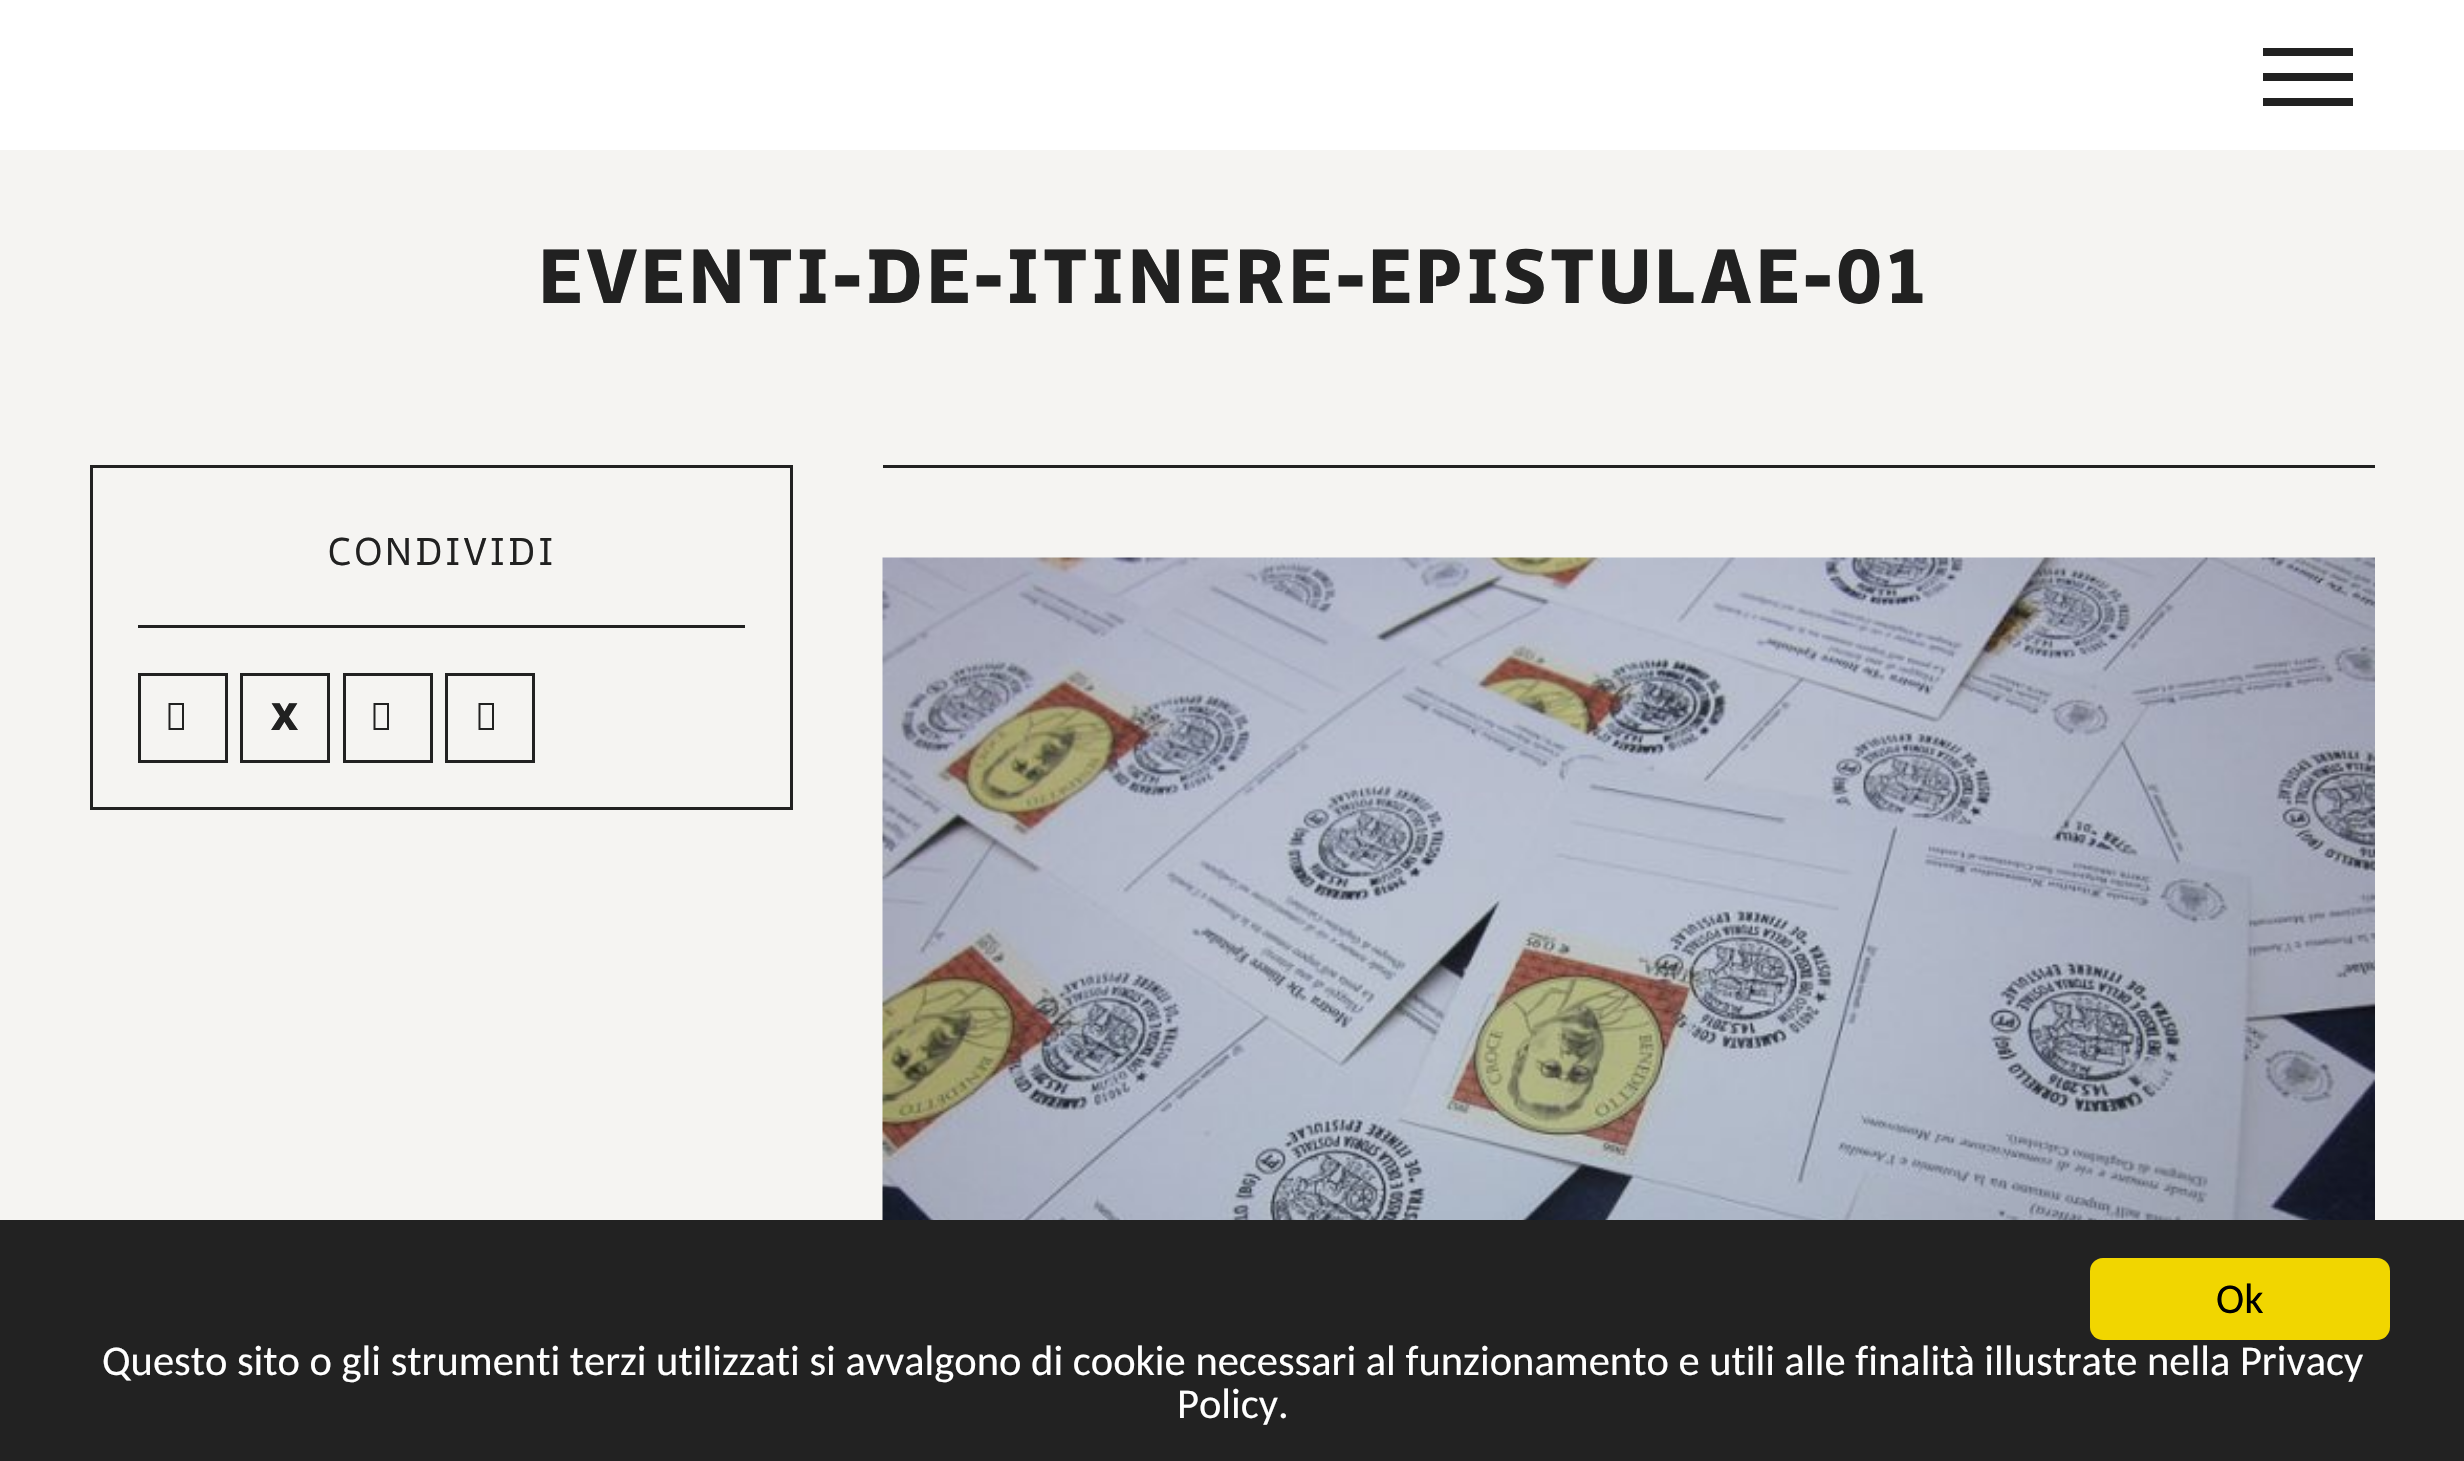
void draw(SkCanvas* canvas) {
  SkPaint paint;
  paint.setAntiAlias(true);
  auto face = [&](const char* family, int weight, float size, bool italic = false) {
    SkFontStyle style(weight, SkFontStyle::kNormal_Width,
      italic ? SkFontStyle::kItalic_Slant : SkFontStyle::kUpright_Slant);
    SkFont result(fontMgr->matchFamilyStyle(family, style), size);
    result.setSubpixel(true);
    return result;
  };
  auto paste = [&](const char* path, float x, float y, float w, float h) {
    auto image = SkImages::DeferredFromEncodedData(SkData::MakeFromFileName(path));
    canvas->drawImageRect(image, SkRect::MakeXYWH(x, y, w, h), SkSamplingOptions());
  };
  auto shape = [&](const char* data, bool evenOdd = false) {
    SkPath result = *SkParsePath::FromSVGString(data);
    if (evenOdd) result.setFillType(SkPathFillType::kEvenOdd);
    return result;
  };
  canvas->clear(0xffffffff);
  {
    const struct { float x, y, w, h; SkColor color; } items[] = {
      {2263, 73, 90, 8, 0xff212121},
      {2263, 48, 90, 8, 0xff212121},
      {2263, 98, 90, 8, 0xff212121},
      {0, 150, 2464, 1070, 0xfff5f4f2},
    };
    for (auto [x, y, w, h, color] : items) {
      paint.setColor(color);
      canvas->drawRect(SkRect::MakeXYWH(x, y, w, h), paint);
    }
  }
  paint.setStroke(true);
  paint.setStrokeWidth(3);
  paint.setColor(0xff212121);
  canvas->drawRect(SkRect::MakeXYWH(91.5f, 466.5f, 700, 342), paint);
  paint.setStroke(false);
  canvas->drawRect(SkRect::MakeXYWH(138, 625, 607, 3), paint);
  paint.setStroke(true);
  canvas->drawRect(SkRect::MakeXYWH(139.5f, 674.5f, 87, 87), paint);
  paint.setStroke(false);
  canvas->drawPath(shape("M168.5 730V703H184V730ZM170.5 728H182V705H170.5Z"), paint);
  paint.setStroke(true);
  canvas->drawRect(SkRect::MakeXYWH(241.5f, 674.5f, 87, 87), paint);
  canvas->drawRect(SkRect::MakeXYWH(344.5f, 674.5f, 87, 87), paint);
  paint.setStroke(false);
  canvas->drawPath(shape("M373.5 730V703H389V730ZM375.5 728H387V705H375.5Z"), paint);
  paint.setStroke(true);
  canvas->drawRect(SkRect::MakeXYWH(446.5f, 674.5f, 87, 87), paint);
  paint.setStroke(false);
  canvas->drawPath(shape("M478.5 730V703H494V730ZM480.5 728H492V705H480.5Z"), paint);
  canvas->drawRect(SkRect::MakeXYWH(883, 465, 1492, 3), paint);
  paste("img/1.png", 882, 557, 1493, 663);
  paint.setColor(0xff222222);
  canvas->drawRect(SkRect::MakeXYWH(0, 1220, 2464, 241), paint);
  paint.setColor(0xfff1d600);
  canvas->drawRoundRect(SkRect::MakeXYWH(2090, 1258, 300, 82), 13, 13, paint);
  auto f0 = face("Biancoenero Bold", 700, 75);
  paint.setColor(0xff212121);
  canvas->drawString("EVENTI-DE-ITINERE-EPISTULAE-01", 537, 303, f0, paint);
  auto f1 = face("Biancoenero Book", 400, 37.5f);
  canvas->drawString("CONDIVIDI", 326, 565, f1, paint);
  auto f2 = face("Noto Sans", 900, 37.5f);
  canvas->drawString("X", 271, 730, f2, paint);
  auto f3 = face("Carlito", 400, 42.5f);
  paint.setColor(0xff000000);
  canvas->drawString("Ok", 2216, 1313, f3, paint);
  paint.setColor(0xffffffff);
  canvas->drawString("Questo sito o gli strumenti terzi utilizzati si avvalgono di cookie necessari al funzionamento e utili alle finalità illustrate nella Privacy", 102, 1375, f3, paint);
  canvas->drawString("Policy.", 1177, 1418, f3, paint);
}
